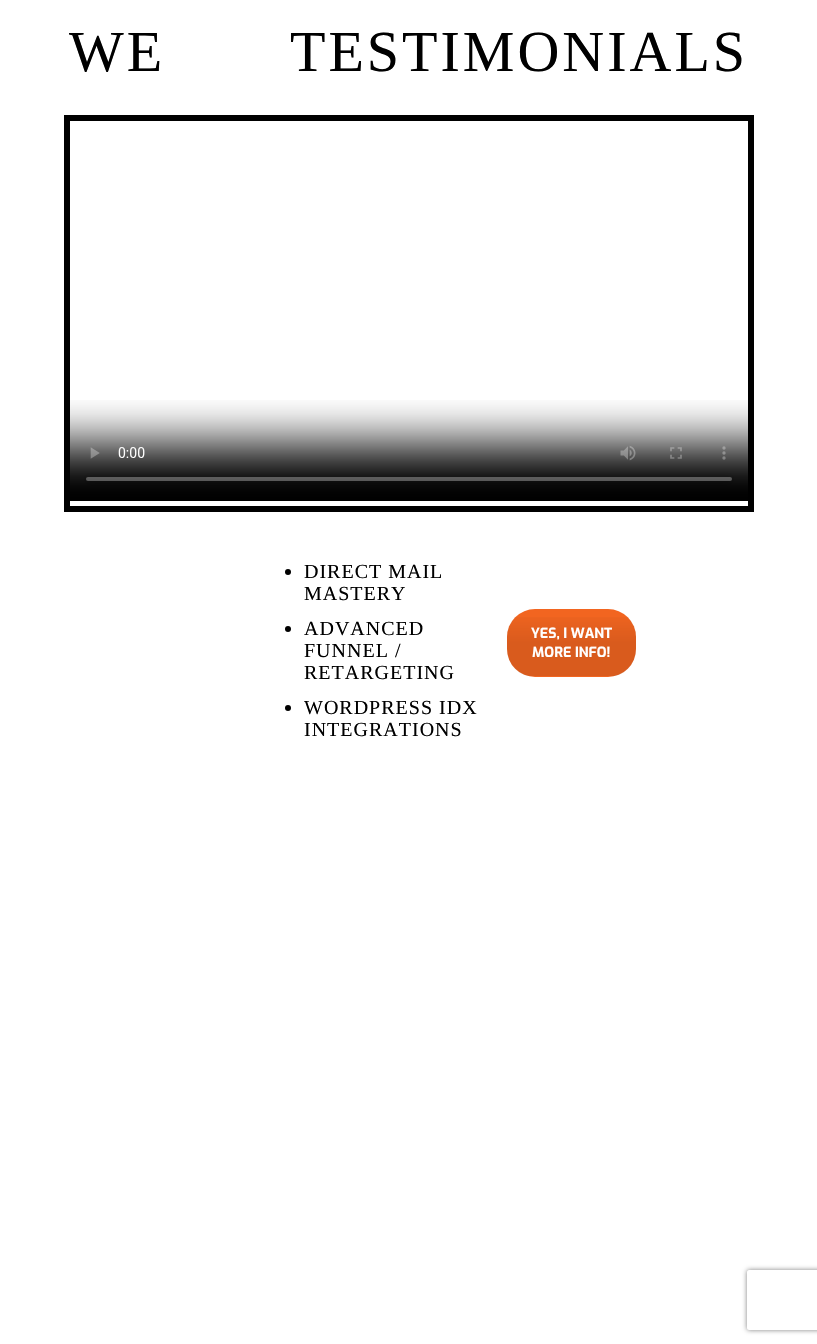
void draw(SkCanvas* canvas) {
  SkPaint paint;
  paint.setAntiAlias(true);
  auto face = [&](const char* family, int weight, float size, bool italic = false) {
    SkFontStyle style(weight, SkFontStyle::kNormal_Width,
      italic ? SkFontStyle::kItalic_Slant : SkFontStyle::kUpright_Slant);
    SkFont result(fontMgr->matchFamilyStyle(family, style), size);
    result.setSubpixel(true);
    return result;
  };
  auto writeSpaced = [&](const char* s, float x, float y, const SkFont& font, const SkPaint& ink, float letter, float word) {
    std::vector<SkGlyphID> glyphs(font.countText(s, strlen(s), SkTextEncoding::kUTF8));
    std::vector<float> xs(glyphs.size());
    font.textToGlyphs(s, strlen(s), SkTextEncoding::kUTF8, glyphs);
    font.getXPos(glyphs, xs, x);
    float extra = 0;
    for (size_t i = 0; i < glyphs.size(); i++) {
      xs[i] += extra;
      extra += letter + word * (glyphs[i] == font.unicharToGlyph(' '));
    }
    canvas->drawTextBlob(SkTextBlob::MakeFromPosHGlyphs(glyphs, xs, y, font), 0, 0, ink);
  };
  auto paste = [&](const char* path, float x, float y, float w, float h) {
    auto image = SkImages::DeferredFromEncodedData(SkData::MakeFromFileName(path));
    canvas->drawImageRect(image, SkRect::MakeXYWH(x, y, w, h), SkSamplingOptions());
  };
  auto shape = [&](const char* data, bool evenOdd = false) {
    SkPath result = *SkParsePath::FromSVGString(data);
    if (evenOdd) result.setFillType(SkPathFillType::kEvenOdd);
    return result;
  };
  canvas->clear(0xffffffff);
  paint.setStroke(true);
  paint.setStrokeWidth(6);
  paint.setColor(0xff000000);
  canvas->drawRect(SkRect::MakeXYWH(67, 118, 684, 391), paint);
  paste("img/1.png", 70, 400, 678, 101);
  paint.setStroke(false);
  canvas->drawCircle(288, 572, 3, paint);
  canvas->drawCircle(288, 629, 3, paint);
  canvas->drawCircle(288, 708, 3, paint);
  paint.setColor(0xfff26520);
  canvas->drawRoundRect(SkRect::MakeXYWH(507, 609, 129, 68), 28, 28, paint);
  canvas->save();
  canvas->clipPath(shape("M535 609H608C623.5 609 636 621.5 636 637V649C636 664.5 623.5 677 608 677H535C519.5 677 507 664.5 507 649V637C507 621.5 519.5 609 535 609Z"), true);
  {
    const SkColor colors[] = {0x00000000, 0x1a000000, 0x1a000000};
    const float stops[] = {0, 0.5f, 1};
    const SkPoint ends[] = {{635, 610}, {635, 676}};
    paint.setShader(SkGradientShader::MakeLinear(ends, colors, stops, 3, SkTileMode::kClamp));
    paint.setAlpha(255);
  }
  canvas->drawRect(SkRect::MakeXYWH(507, 617, 129, 59), paint);
  canvas->restore();
  canvas->save();
  canvas->clipPath(shape("M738 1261H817V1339H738ZM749 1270H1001C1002 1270 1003 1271 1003 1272V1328C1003 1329 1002 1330 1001 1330H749C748 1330 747 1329 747 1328V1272C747 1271 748 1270 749 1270Z", true), true);
  paint.setShader(nullptr);
  paint.setColor(0xff808080);
  paint.setMaskFilter(SkMaskFilter::MakeBlur(kNormal_SkBlurStyle, 2.5f));
  canvas->drawRoundRect(SkRect::MakeXYWH(747, 1270, 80, 60), 2, 2, paint);
  paint.setMaskFilter(nullptr);
  canvas->restore();
  auto f0 = face("Liberation Serif", 400, 58);
  paint.setColor(0xff000000);
  writeSpaced("WE", 69, 71, f0, paint, 3, 0);
  writeSpaced("TESTIMONIALS", 290, 71, f0, paint, 3, 0);
  auto f1 = face("Liberation Serif", 400, 20);
  {
    const struct { const char* s; float x, y; } items[] = {
      {"DIRECT MAIL", 304, 578},
      {"MASTERY", 304, 600},
      {"ADVANCED", 304, 635},
      {"FUNNEL /", 304, 657},
      {"RETARGETING", 304, 679},
      {"WORDPRESS IDX", 304, 714},
      {"INTEGRATIONS", 304, 736},
    };
    for (auto [s, x, y] : items) {
      writeSpaced(s, x, y, f1, paint, 1, 0);
    }
  }
  auto f2 = face("Exo", 700, 14);
  paint.setColor(0xffffffff);
  canvas->drawString("YES, I WANT", 531, 638, f2, paint);
  canvas->drawString("MORE INFO!", 532, 657, f2, paint);
}
